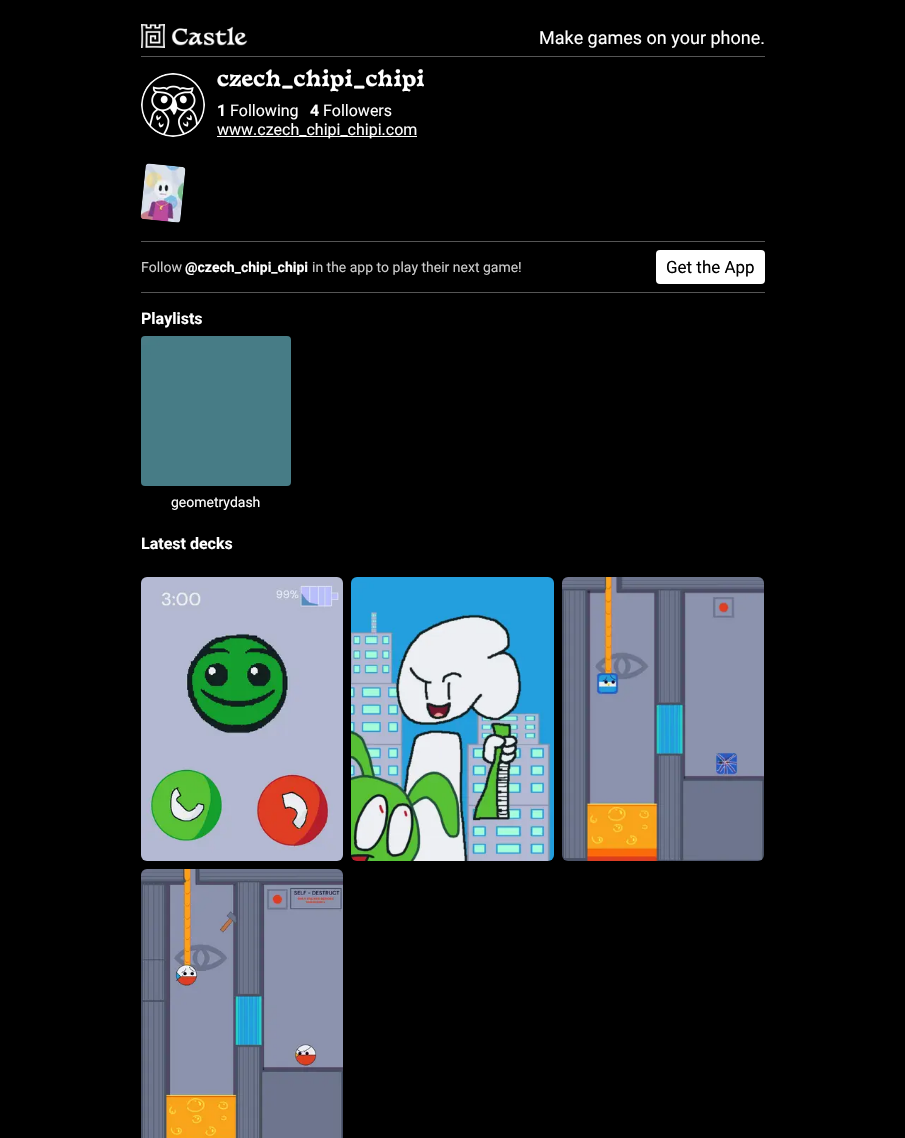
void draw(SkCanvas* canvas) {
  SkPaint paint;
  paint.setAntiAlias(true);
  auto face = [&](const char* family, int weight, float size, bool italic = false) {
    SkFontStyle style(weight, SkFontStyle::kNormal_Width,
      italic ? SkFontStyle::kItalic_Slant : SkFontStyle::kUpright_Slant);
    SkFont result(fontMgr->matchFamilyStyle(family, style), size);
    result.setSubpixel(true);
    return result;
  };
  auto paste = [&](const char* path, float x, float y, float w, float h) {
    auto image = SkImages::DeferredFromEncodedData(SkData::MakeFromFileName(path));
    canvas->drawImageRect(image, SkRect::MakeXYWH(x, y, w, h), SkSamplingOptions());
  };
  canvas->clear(0xff000000);
  paint.setColor(0xff555555);
  canvas->drawRect(SkRect::MakeXYWH(141, 56, 624, 1), paint);
  paste("img/1.png", 141, 24, 24, 24);
  paste("img/2.png", 171, 26, 77, 20);
  paste("img/3.png", 141, 73, 64, 64);
  paint.setColor(0xffffffff);
  canvas->drawRect(SkRect::MakeXYWH(217, 136, 200, 1), paint);
  paste("img/4.png", 140, 163, 46, 60);
  paint.setColor(0xff555555);
  canvas->drawRect(SkRect::MakeXYWH(141, 241, 624, 1), paint);
  canvas->drawRect(SkRect::MakeXYWH(141, 292, 624, 1), paint);
  paint.setColor(0xffffffff);
  canvas->drawRoundRect(SkRect::MakeXYWH(656, 250, 109, 34), 4, 4, paint);
  paste("img/5.png", 141, 336, 150, 150);
  paste("img/6.png", 141, 577, 202, 284);
  paste("img/7.png", 351, 577, 203, 284);
  paste("img/8.png", 562, 577, 202, 284);
  paste("img/9.png", 141, 869, 202, 269);
  auto f0 = face("Roboto", 400, 18);
  canvas->drawString("Make games on your phone.", 539, 44, f0, paint);
  auto f1 = face("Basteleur", 700, 20);
  canvas->drawString("czech_chipi_chipi", 217, 86, f1, paint);
  auto f2 = face("Roboto", 700, 16);
  canvas->drawString("1", 217, 116, f2, paint);
  auto f3 = face("Roboto", 400, 16);
  canvas->drawString("Following", 230, 116, f3, paint);
  canvas->drawString("4", 310, 116, f2, paint);
  canvas->drawString("Followers", 323, 116, f3, paint);
  canvas->drawString("www.czech_chipi_chipi.com", 217, 135, f3, paint);
  auto f4 = face("Roboto", 400, 14);
  paint.setColor(0xffcccccc);
  canvas->drawString("Follow", 141, 272, f4, paint);
  auto f5 = face("Roboto", 700, 14);
  paint.setColor(0xffffffff);
  canvas->drawString("@czech_chipi_chipi", 185, 272, f5, paint);
  paint.setColor(0xffcccccc);
  canvas->drawString("in the app to play their next game!", 312, 272, f4, paint);
  auto f6 = face("Roboto", 400, 17);
  paint.setColor(0xff000000);
  canvas->drawString("Get the App", 666, 273, f6, paint);
  paint.setColor(0xffffffff);
  canvas->drawString("Playlists", 141, 324, f2, paint);
  canvas->drawString("geometrydash", 171, 507, f4, paint);
  canvas->drawString("Latest decks", 141, 549, f2, paint);
}
